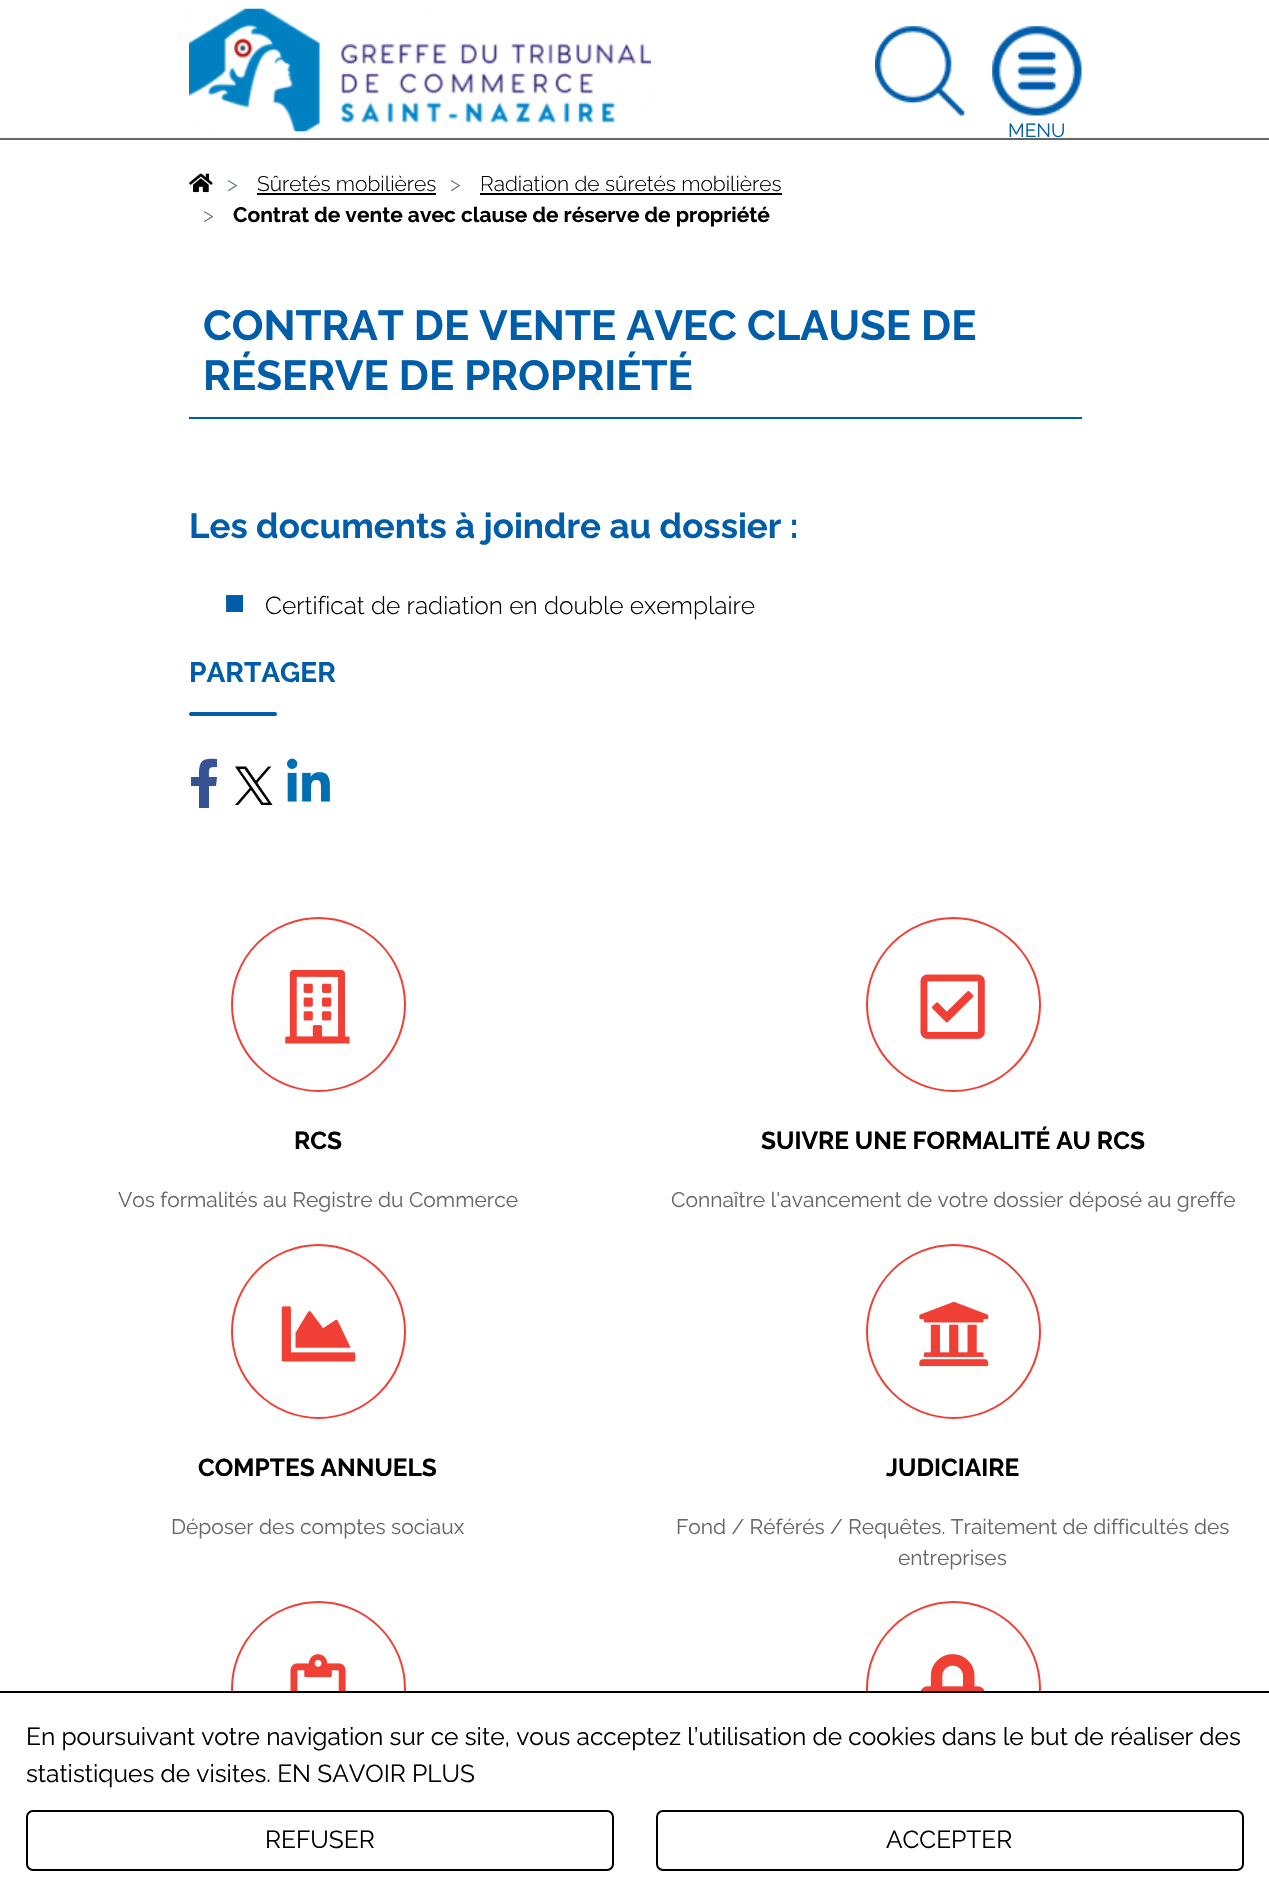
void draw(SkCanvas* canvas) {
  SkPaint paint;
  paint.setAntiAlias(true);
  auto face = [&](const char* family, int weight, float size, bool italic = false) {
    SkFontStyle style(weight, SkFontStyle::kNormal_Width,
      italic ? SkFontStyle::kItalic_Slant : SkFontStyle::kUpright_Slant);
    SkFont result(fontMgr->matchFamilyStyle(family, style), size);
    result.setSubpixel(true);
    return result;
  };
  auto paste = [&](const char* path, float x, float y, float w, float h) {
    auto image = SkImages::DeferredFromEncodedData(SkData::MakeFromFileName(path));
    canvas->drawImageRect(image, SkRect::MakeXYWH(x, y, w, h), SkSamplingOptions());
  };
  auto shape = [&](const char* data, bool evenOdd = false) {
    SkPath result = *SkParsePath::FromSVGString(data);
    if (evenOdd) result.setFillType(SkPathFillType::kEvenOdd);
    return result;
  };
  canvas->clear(0xffffffff);
  paint.setColor(0xff666666);
  canvas->drawRect(SkRect::MakeXYWH(0, 138, 1269, 2), paint);
  paste("img/1.png", 189, 8, 462, 124);
  paste("img/2.png", 875, 26, 90, 90);
  paste("img/3.png", 992, 26, 90, 90);
  paste("img/4.png", 189, 173, 24, 20);
  {
    const struct { float x, y, w, h; SkColor color; } items[] = {
      {257, 193, 179, 2, 0xff000000},
      {480, 193, 302, 2, 0xff000000},
      {189, 417, 893, 2, 0xff005daa},
    };
    for (auto [x, y, w, h, color] : items) {
      paint.setColor(color);
      canvas->drawRect(SkRect::MakeXYWH(x, y, w, h), paint);
    }
  }
  canvas->drawRoundRect(SkRect::MakeXYWH(189, 712, 88, 4), 2, 2, paint);
  paint.setColor(0xff365396);
  canvas->drawPath(shape("M216 786H209V808H199V786H191V777H199C199 761 201 758 217 759V767C208 767 209 768 209 777H217Z"), paint);
  paste("img/5.png", 235, 766, 38, 39);
  paste("img/6.png", 287, 758, 43, 44);
  paint.setStroke(true);
  paint.setStrokeWidth(2);
  paint.setColor(0xfff03f35);
  canvas->drawCircle(318.5f, 1004.5f, 86.5f, paint);
  paste("img/7.png", 285, 969, 65, 75);
  canvas->drawCircle(953.5f, 1004.5f, 86.5f, paint);
  paste("img/8.png", 920, 974, 65, 65);
  canvas->drawCircle(318.5f, 1331.5f, 86.5f, paint);
  paste("img/9.png", 281, 1306, 75, 56);
  canvas->drawCircle(953.5f, 1331.5f, 86.5f, paint);
  paste("img/10.png", 919, 1301, 70, 66);
  canvas->drawCircle(318.5f, 1688.5f, 86.5f, paint);
  paste("img/11.png", 290, 1654, 56, 37);
  canvas->drawCircle(953.5f, 1688.5f, 86.5f, paint);
  paste("img/12.png", 920, 1654, 65, 37);
  paint.setStroke(false);
  paint.setColor(0xffffffff);
  canvas->drawRect(SkRect::MakeXYWH(231, 1693, 810, 83), paint);
  paint.setColor(0xff000000);
  canvas->drawRect(SkRect::MakeXYWH(0, 1691, 1269, 2), paint);
  paint.setStroke(true);
  canvas->drawRoundRect(SkRect::MakeXYWH(27, 1811, 586, 59), 6, 6, paint);
  canvas->drawRoundRect(SkRect::MakeXYWH(657, 1811, 586, 59), 6, 6, paint);
  auto f0 = face("Raleway", 400, 19);
  paint.setStroke(false);
  paint.setColor(0xff005daa);
  canvas->drawString("MENU", 1008, 137, f0, paint);
  auto f1 = face("Raleway", 300, 21);
  paint.setColor(0xff6c757d);
  canvas->drawString(">", 227, 191, f1, paint);
  paint.setColor(0xff000000);
  canvas->drawString("Sûretés mobilières", 257, 191, f1, paint);
  paint.setColor(0xff6c757d);
  canvas->drawString(">", 450, 191, f1, paint);
  paint.setColor(0xff000000);
  canvas->drawString("Radiation de sûretés mobilières", 480, 191, f1, paint);
  paint.setColor(0xff6c757d);
  canvas->drawString(">", 203, 222, f1, paint);
  auto f2 = face("Raleway", 700, 21);
  paint.setColor(0xff000000);
  canvas->drawString("Contrat de vente avec clause de réserve de propriété", 233, 222, f2, paint);
  auto f3 = face("Raleway", 700, 42);
  paint.setColor(0xff005daa);
  canvas->drawString("CONTRAT DE VENTE AVEC CLAUSE DE", 203, 340, f3, paint);
  canvas->drawString("RÉSERVE DE PROPRIÉTÉ", 203, 390, f3, paint);
  auto f4 = face("Raleway", 700, 35);
  canvas->drawString("Les documents à joindre au dossier :", 189, 538, f4, paint);
  auto f5 = face("Liberation Sans", 400, 35);
  canvas->drawString("■", 224, 614, f5, paint);
  auto f6 = face("Raleway", 300, 24.5f);
  paint.setColor(0xff000000);
  canvas->drawString("Certificat de radiation en double exemplaire", 265, 614, f6, paint);
  auto f7 = face("Raleway", 700, 28);
  paint.setColor(0xff005daa);
  canvas->drawString("PARTAGER", 189, 682, f7, paint);
  auto f8 = face("Raleway", 700, 24.5f);
  paint.setColor(0xff000000);
  canvas->drawString("RCS", 294, 1149, f8, paint);
  auto f9 = face("Raleway", 400, 21);
  paint.setColor(0xff666666);
  canvas->drawString("Vos formalités au Registre du Commerce", 118, 1207, f9, paint);
  paint.setColor(0xff000000);
  canvas->drawString("SUIVRE UNE FORMALITÉ AU RCS", 761, 1149, f8, paint);
  paint.setColor(0xff666666);
  canvas->drawString("Connaître l'avancement de votre dossier déposé au greffe", 671, 1207, f9, paint);
  paint.setColor(0xff000000);
  canvas->drawString("COMPTES ANNUELS", 198, 1476, f8, paint);
  paint.setColor(0xff666666);
  canvas->drawString("Déposer des comptes sociaux", 171, 1534, f9, paint);
  paint.setColor(0xff000000);
  canvas->drawString("JUDICIAIRE", 886, 1476, f8, paint);
  paint.setColor(0xff666666);
  canvas->drawString("Fond / Référés / Requêtes. Traitement de difficultés des", 676, 1534, f9, paint);
  canvas->drawString("entreprises", 898, 1565, f9, paint);
  auto f10 = face("Raleway", 400, 24.5f);
  paint.setColor(0xff000000);
  {
    const struct { const char* s; float x, y; } items[] = {
      {"En poursuivant votre navigation sur ce site, vous acceptez l’utilisation de cookies dans le but de réaliser des", 26, 1745},
      {"statistiques de visites. EN SAVOIR PLUS", 26, 1782},
      {"REFUSER", 265, 1848},
      {"ACCEPTER", 886, 1848},
    };
    for (auto [s, x, y] : items) {
      canvas->drawString(s, x, y, f10, paint);
    }
  }
}
